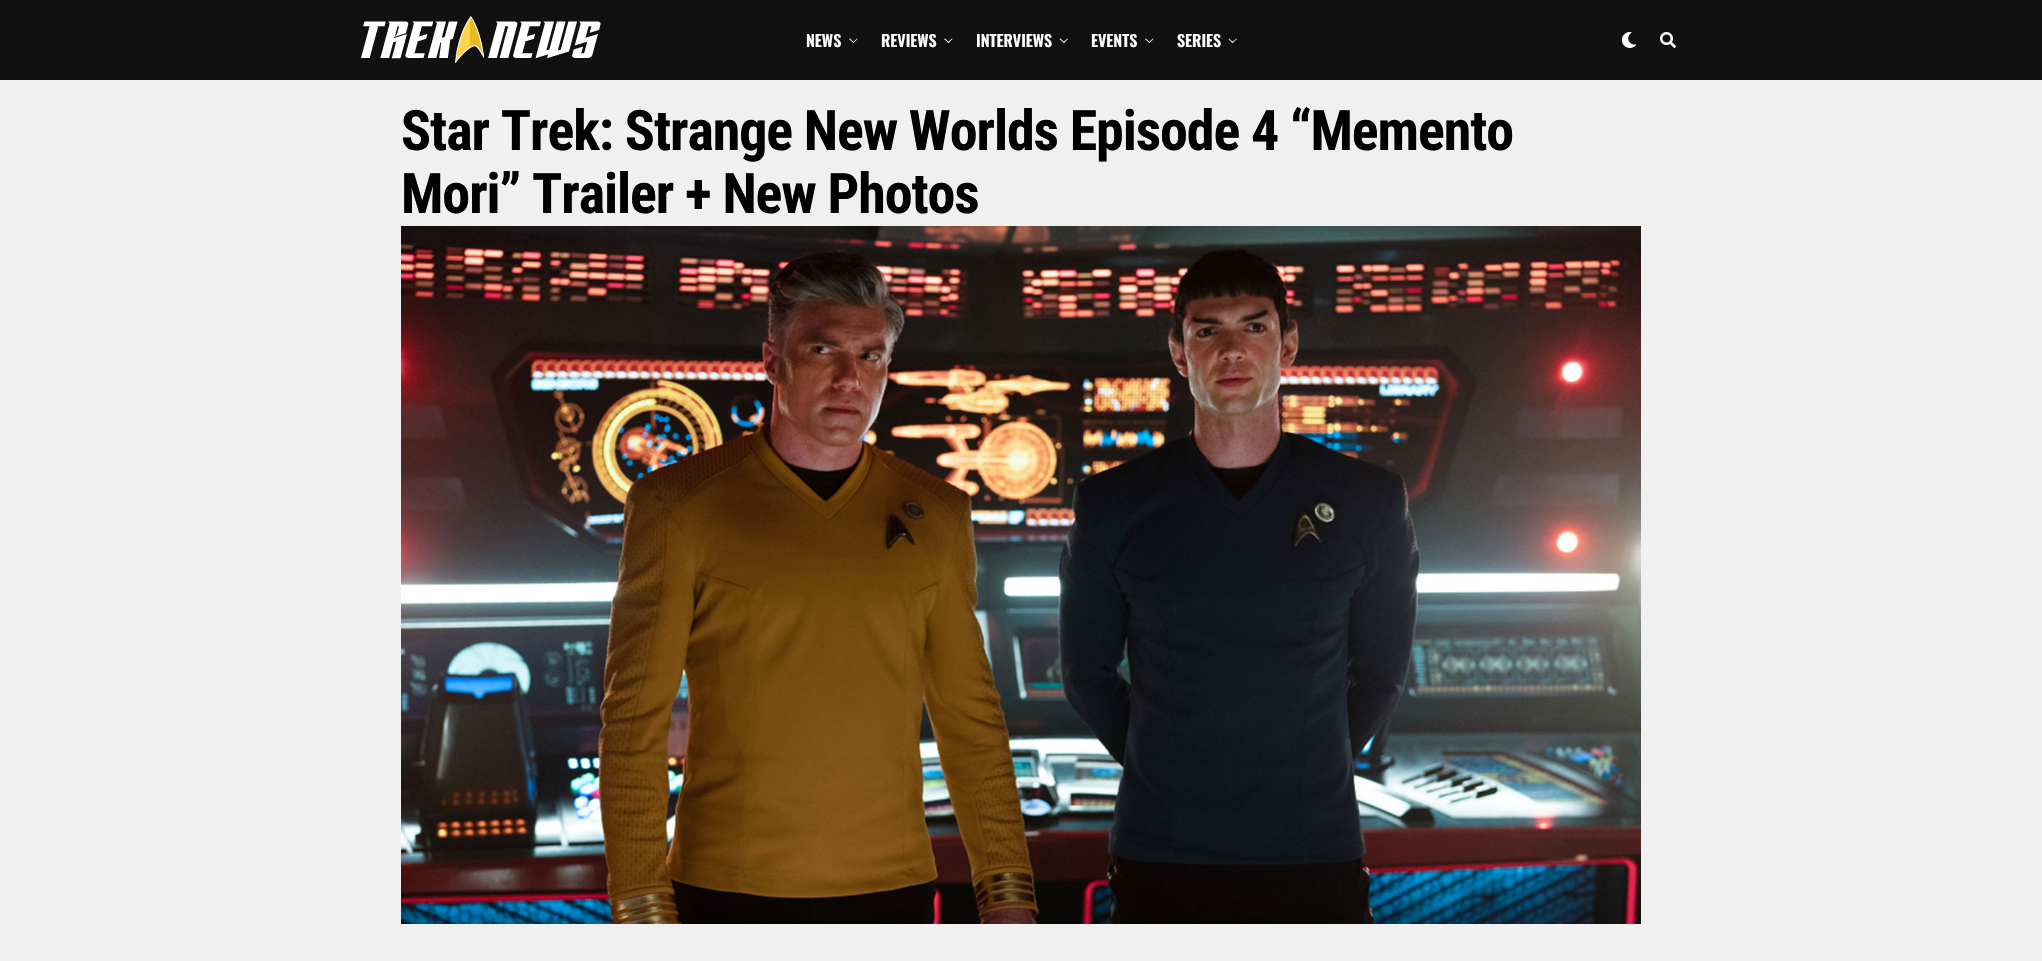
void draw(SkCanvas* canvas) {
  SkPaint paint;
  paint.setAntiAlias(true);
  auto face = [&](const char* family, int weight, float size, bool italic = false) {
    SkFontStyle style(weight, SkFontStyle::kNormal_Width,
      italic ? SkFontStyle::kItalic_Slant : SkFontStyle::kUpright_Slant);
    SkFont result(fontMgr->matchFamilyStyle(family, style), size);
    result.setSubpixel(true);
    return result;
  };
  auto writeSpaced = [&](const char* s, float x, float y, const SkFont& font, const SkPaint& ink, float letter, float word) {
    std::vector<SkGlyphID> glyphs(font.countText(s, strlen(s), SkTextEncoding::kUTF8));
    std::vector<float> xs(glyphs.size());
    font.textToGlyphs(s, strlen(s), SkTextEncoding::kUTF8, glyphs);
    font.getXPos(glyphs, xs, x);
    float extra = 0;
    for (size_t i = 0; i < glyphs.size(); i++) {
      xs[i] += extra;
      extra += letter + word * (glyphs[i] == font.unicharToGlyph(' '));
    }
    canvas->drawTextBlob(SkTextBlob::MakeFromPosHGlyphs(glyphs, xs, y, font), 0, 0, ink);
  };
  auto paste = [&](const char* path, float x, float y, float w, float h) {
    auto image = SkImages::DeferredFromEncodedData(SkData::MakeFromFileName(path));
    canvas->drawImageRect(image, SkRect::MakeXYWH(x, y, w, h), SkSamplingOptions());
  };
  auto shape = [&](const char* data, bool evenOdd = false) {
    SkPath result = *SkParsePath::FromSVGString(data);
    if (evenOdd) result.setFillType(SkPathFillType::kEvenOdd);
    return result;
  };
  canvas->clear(0xfff0f0f0);
  paint.setColor(0xff111111);
  canvas->drawRect(SkRect::MakeXYWH(0, 0, 2042, 80), paint);
  paste("img/1.png", 361, 16, 240, 47);
  paint.setColor(0xffffffff);
  canvas->drawPath(shape("M857 38.5L857.5 39L853.5 43L853 42.5Z"), paint);
  canvas->drawPath(shape("M850 38.5L854 42.5L853.5 43L849 39Z"), paint);
  canvas->drawPath(shape("M952 38.5L952.5 39L948.5 43L947.5 42.5Z"), paint);
  canvas->drawPath(shape("M945 38.5L949 42.5L948.5 43L944 39Z"), paint);
  canvas->drawPath(shape("M1067.5 38.5L1068 39L1064 43L1063 42.5Z"), paint);
  canvas->drawPath(shape("M1060.5 38.5L1064.5 42.5L1064 43L1059.5 39Z"), paint);
  canvas->drawPath(shape("M1153 38.5L1153.5 39L1149.5 43L1148.5 42.5Z"), paint);
  canvas->drawPath(shape("M1146 38.5L1150 42.5L1149.5 43L1145 39Z"), paint);
  canvas->drawPath(shape("M1236.5 38.5L1237 39L1232.5 43L1232 42.5Z"), paint);
  canvas->drawPath(shape("M1229 38.5L1233.5 42.5L1232.5 43L1228.5 39Z"), paint);
  paste("img/2.png", 1621, 32, 16, 16);
  paste("img/3.png", 1660, 32, 16, 16);
  paste("img/4.png", 401, 226, 1240, 698);
  auto f0 = face("Oswald", 600, 16);
  {
    const struct { const char* s; float x, y; } items[] = {
      {"NEWS", 806, 47},
      {"REVIEWS", 881, 47},
      {"INTERVIEWS", 976, 47},
      {"EVENTS", 1091, 47},
      {"SERIES", 1177, 47},
    };
    for (auto [s, x, y] : items) {
      canvas->drawString(s, x, y, f0, paint);
    }
  }
  auto f1 = face("Roboto Condensed", 700, 56);
  paint.setColor(0xff000000);
  writeSpaced("Star Trek: Strange New Worlds Episode 4 “Memento", 401, 150, f1, paint, -1.1f, 0);
  writeSpaced("Mori” Trailer + New Photos", 401, 213, f1, paint, -1.1f, 0);
}
